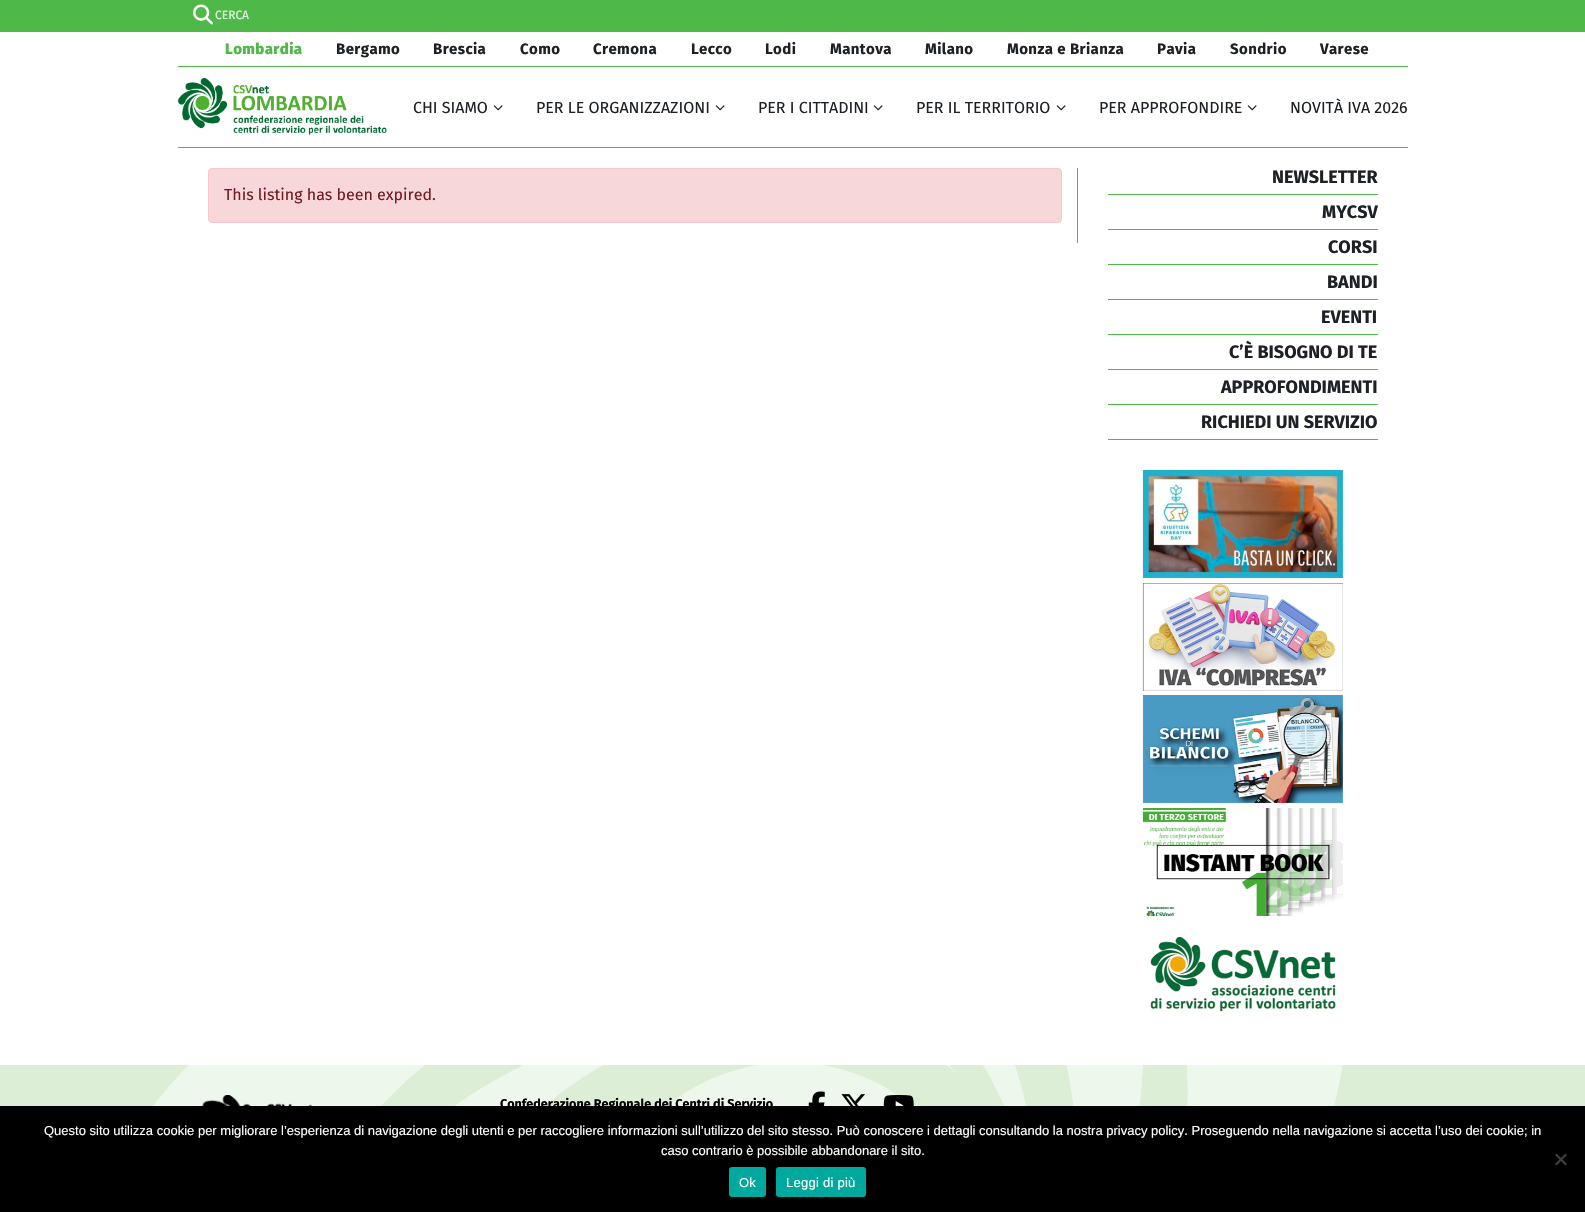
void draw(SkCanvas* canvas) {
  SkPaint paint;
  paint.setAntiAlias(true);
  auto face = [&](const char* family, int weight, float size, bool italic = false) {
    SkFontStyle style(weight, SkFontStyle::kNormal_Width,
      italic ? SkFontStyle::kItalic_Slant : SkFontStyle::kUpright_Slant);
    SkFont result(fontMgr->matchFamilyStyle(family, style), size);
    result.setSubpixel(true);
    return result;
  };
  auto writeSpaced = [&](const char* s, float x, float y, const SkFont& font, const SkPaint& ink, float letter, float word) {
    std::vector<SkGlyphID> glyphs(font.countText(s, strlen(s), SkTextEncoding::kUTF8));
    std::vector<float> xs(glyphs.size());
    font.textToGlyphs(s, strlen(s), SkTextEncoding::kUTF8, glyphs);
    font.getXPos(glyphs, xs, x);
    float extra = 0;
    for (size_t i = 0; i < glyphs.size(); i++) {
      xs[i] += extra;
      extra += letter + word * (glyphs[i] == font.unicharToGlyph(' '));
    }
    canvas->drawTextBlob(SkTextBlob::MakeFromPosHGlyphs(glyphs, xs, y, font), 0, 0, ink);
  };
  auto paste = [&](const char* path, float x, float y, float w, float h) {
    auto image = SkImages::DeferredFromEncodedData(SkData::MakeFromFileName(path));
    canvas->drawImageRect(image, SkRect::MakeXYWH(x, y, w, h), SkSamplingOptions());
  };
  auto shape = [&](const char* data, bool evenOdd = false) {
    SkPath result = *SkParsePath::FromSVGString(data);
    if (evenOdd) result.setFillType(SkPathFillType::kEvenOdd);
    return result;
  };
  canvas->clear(0xffffffff);
  paint.setColor(0xff4eb848);
  canvas->drawRect(SkRect::MakeXYWH(0, 0, 1585, 32), paint);
  paste("img/1.png", 193, 4, 20, 21);
  canvas->drawRect(SkRect::MakeXYWH(178, 66, 1230, 1), paint);
  canvas->drawRect(SkRect::MakeXYWH(178, 147, 1230, 1), paint);
  paste("img/2.png", 177, 78, 210, 58);
  paste("img/3.png", 493, 105, 10, 6);
  paste("img/3.png", 715, 105, 10, 6);
  paste("img/3.png", 873, 105, 10, 6);
  paste("img/3.png", 1056, 105, 10, 6);
  paste("img/3.png", 1247, 105, 10, 6);
  canvas->drawRect(SkRect::MakeXYWH(1077, 168, 1, 75), paint);
  paint.setColor(0xfff8d7da);
  canvas->drawRoundRect(SkRect::MakeXYWH(208.5f, 168.5f, 853, 54), 3.5f, 3.5f, paint);
  paint.setStroke(true);
  paint.setStrokeWidth(1);
  paint.setColor(0xfff5c6cb);
  canvas->drawRoundRect(SkRect::MakeXYWH(208.5f, 168.5f, 853, 54), 3.5f, 3.5f, paint);
  paint.setStroke(false);
  {
    const struct { float x, y, w, h; SkColor color; } items[] = {
      {1108, 439, 270, 1, 0xff4eb848},
      {1108, 194, 270, 1, 0xff4eb848},
      {1108, 229, 270, 1, 0xff4eb848},
      {1108, 264, 270, 1, 0xff4eb848},
      {1108, 299, 270, 1, 0xff4eb848},
      {1108, 334, 270, 1, 0xff4eb848},
      {1108, 369, 270, 1, 0xff4eb848},
      {1108, 404, 270, 1, 0xff4eb848},
    };
    for (auto [x, y, w, h, color] : items) {
      paint.setColor(color);
      canvas->drawRect(SkRect::MakeXYWH(x, y, w, h), paint);
    }
  }
  paste("img/4.png", 1142, 470, 201, 108);
  paste("img/5.png", 1142, 583, 201, 108);
  paste("img/6.png", 1142, 695, 201, 108);
  paste("img/7.png", 1142, 808, 201, 108);
  paste("img/8.png", 1150, 937, 186, 75);
  paint.setColor(0xffdceed6);
  canvas->drawRect(SkRect::MakeXYWH(0, 1065, 1585, 41), paint);
  paste("img/9.png", 108, 1065, 1315, 41);
  paste("img/10.png", 202, 1095, 110, 11);
  paste("img/11.png", 808, 1091, 17, 15);
  paste("img/12.png", 841, 1094, 24, 12);
  paste("img/13.png", 883, 1095, 31, 11);
  paint.setColor(0xff000000);
  canvas->drawRect(SkRect::MakeXYWH(0, 1106, 1585, 106), paint);
  paint.setColor(0xff404040);
  canvas->drawPath(shape("M1565.5 1153.5L1567 1155L1556.5 1165.5L1555 1164Z"), paint);
  canvas->drawPath(shape("M1555 1155L1556.5 1153.5L1567 1164L1565.5 1165.5Z"), paint);
  paint.setColor(0xff00a99d);
  canvas->drawRoundRect(SkRect::MakeXYWH(729, 1167, 37, 30), 3, 3, paint);
  canvas->drawRoundRect(SkRect::MakeXYWH(776, 1167, 90, 30), 3, 3, paint);
  auto f0 = face("Fira Sans", 400, 12);
  paint.setColor(0xffe4f4e4);
  canvas->drawString("CERCA", 215, 19, f0, paint);
  auto f1 = face("Fira Sans", 800, 15);
  paint.setColor(0xff50b848);
  writeSpaced("Lombardia", 225, 54, f1, paint, 0.4f, 0);
  auto f2 = face("Fira Sans", 700, 15);
  paint.setColor(0xff1d2127);
  {
    const struct { const char* s; float x, y; } items[] = {
      {"Bergamo", 336, 54},
      {"Brescia", 433, 54},
      {"Como", 520, 54},
      {"Cremona", 593, 54},
      {"Lecco", 691, 54},
      {"Lodi", 765, 54},
      {"Mantova", 830, 54},
      {"Milano", 925, 54},
      {"Monza e Brianza", 1007, 54},
      {"Pavia", 1157, 54},
      {"Sondrio", 1230, 54},
      {"Varese", 1320, 54},
    };
    for (auto [s, x, y] : items) {
      writeSpaced(s, x, y, f2, paint, 0.4f, 0);
    }
  }
  auto f3 = face("Fira Sans", 400, 16);
  {
    const struct { const char* s; float x, y; } items[] = {
      {"CHI SIAMO", 413, 113},
      {"PER LE ORGANIZZAZIONI", 536, 113},
      {"PER I CITTADINI", 758, 113},
      {"PER IL TERRITORIO", 916, 113},
      {"PER APPROFONDIRE", 1099, 113},
      {"NOVITÀ IVA 2026", 1290, 113},
    };
    for (auto [s, x, y] : items) {
      canvas->drawString(s, x, y, f3, paint);
    }
  }
  paint.setColor(0xff721c24);
  canvas->drawString("This listing has been expired.", 224, 200, f3, paint);
  auto f4 = face("Fira Sans", 700, 18);
  paint.setColor(0xff1d2127);
  {
    const struct { const char* s; float x, y; } items[] = {
      {"NEWSLETTER", 1272, 183},
      {"MYCSV", 1322, 218},
      {"CORSI", 1328, 253},
      {"BANDI", 1327, 288},
      {"EVENTI", 1321, 323},
      {"C’È BISOGNO DI TE", 1229, 358},
      {"APPROFONDIMENTI", 1221, 393},
      {"RICHIEDI UN SERVIZIO", 1201, 428},
    };
    for (auto [s, x, y] : items) {
      canvas->drawString(s, x, y, f4, paint);
    }
  }
  auto f5 = face("Fira Sans", 700, 12.6f);
  paint.setColor(0xff000000);
  canvas->drawString("Confederazione Regionale dei Centri di Servizio", 500, 1108, f5, paint);
  auto f6 = face("Liberation Sans", 400, 13);
  paint.setColor(0xffffffff);
  canvas->drawString("Questo sito utilizza cookie per migliorare l’esperienza di navigazione degli utenti e per raccogliere informazioni sull’utilizzo del sito stesso. Può conoscere i dettagli consultando la nostra privacy policy. Proseguendo nella navigazione si accetta l’uso dei cookie; in", 44, 1135, f6, paint);
  canvas->drawString("caso contrario è possibile abbandonare il sito.", 661, 1155, f6, paint);
  writeSpaced("Ok", 739, 1187, f6, paint, 0.25f, 0);
  writeSpaced("Leggi di più", 786, 1187, f6, paint, 0.25f, 0);
}
